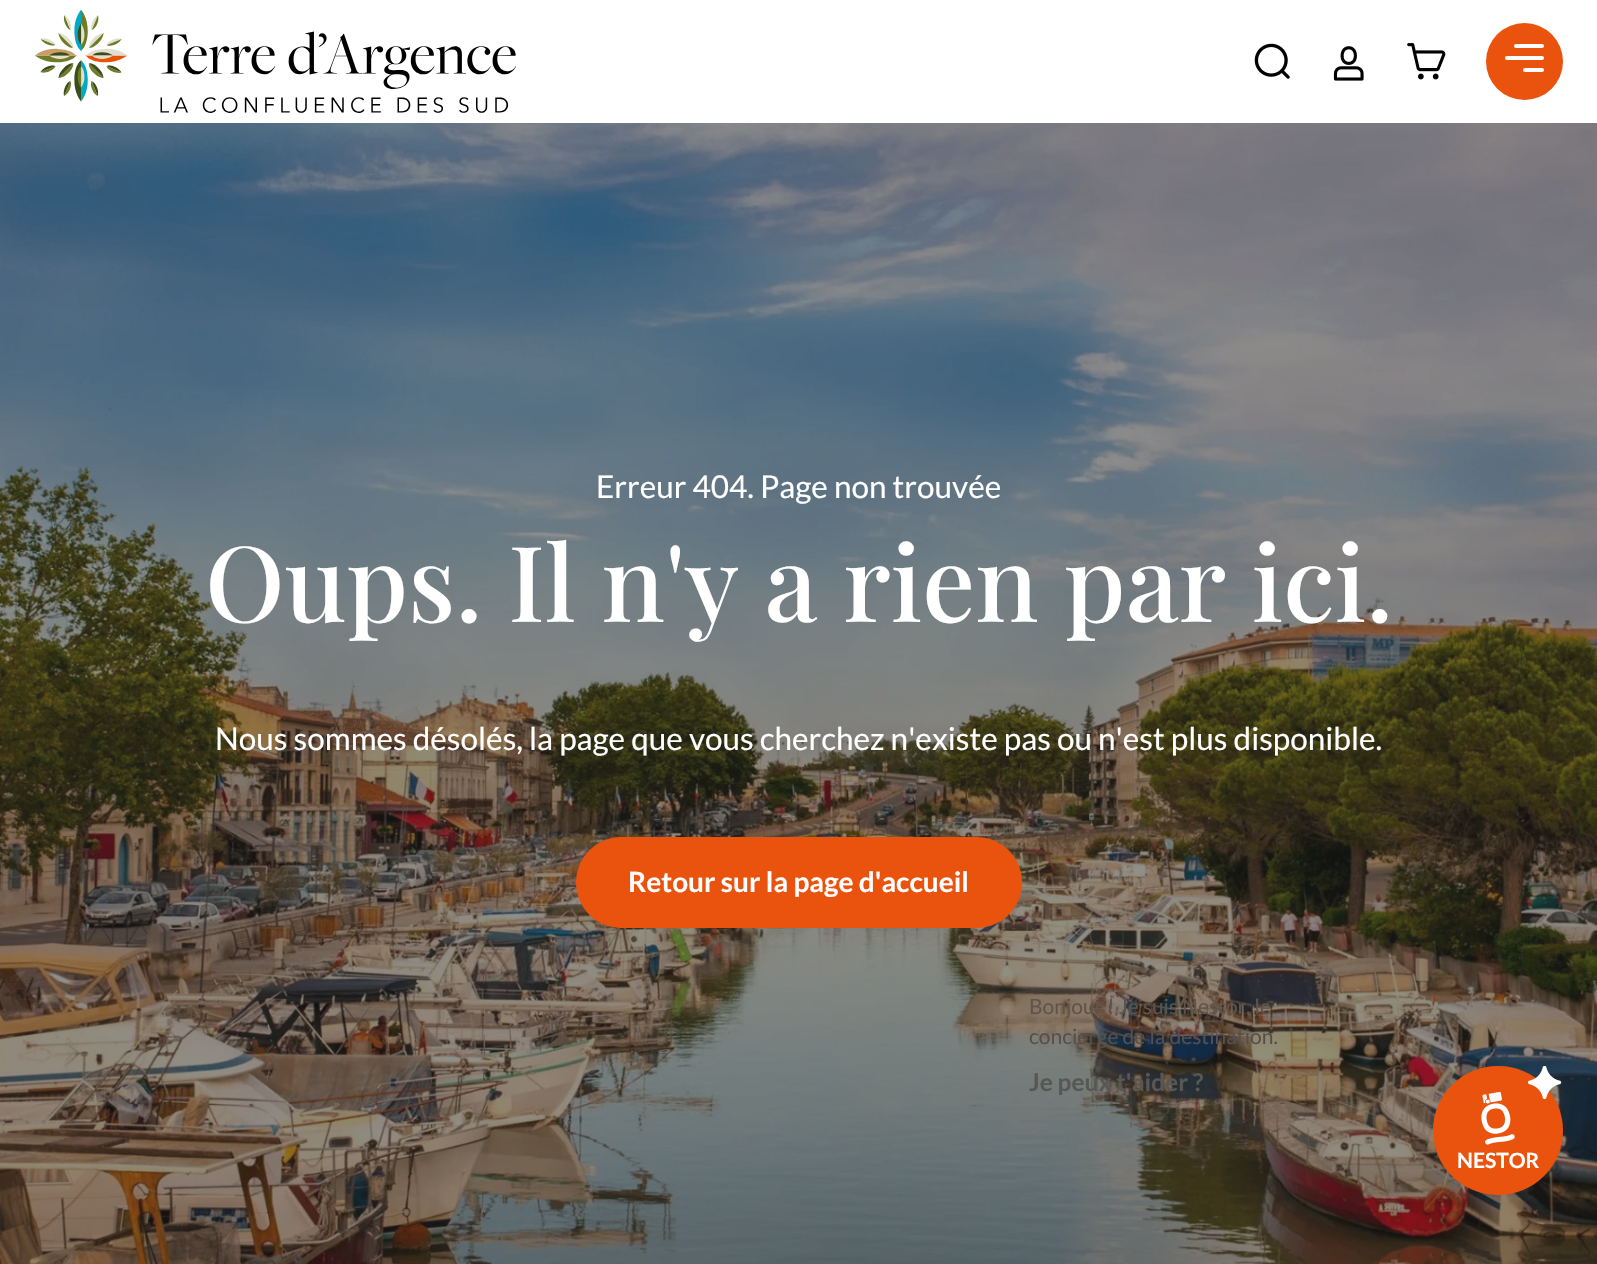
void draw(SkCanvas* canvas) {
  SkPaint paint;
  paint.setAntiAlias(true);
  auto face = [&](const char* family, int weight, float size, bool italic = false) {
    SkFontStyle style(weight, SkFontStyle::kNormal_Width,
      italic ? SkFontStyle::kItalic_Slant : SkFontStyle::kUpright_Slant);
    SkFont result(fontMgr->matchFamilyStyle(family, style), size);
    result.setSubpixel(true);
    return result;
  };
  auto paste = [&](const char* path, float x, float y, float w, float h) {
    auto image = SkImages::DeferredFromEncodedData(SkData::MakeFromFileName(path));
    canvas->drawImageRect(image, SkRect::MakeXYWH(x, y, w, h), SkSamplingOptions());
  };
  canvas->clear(0xffffffff);
  paste("img/1.png", 35, 10, 481, 103);
  paste("img/2.png", 1254, 43, 36, 36);
  paste("img/3.png", 1333, 46, 31, 35);
  paste("img/4.png", 1407, 43, 39, 37);
  paint.setColor(0xffe9530e);
  canvas->drawCircle(1524.5f, 61.5f, 38.5f, paint);
  paint.setColor(0xffffffff);
  canvas->drawRoundRect(SkRect::MakeXYWH(1514, 44, 30, 4), 2, 2, paint);
  canvas->drawRoundRect(SkRect::MakeXYWH(1505, 56, 39, 4), 2, 2, paint);
  canvas->drawRoundRect(SkRect::MakeXYWH(1523, 68, 21, 4), 2, 2, paint);
  paste("img/5.png", 0, 123, 1597, 1141);
  paint.setColor(0xffe9530e);
  canvas->drawRoundRect(SkRect::MakeXYWH(576, 837, 446, 91), 45.5f, 45.5f, paint);
  canvas->drawRoundRect(SkRect::MakeXYWH(1433, 1066, 130, 129), 64.5f, 64.5f, paint);
  paste("img/6.png", 1527, 1066, 35, 34);
  paste("img/7.png", 1481, 1091, 34, 54);
  auto f0 = face("Lato", 400, 31.5f);
  paint.setColor(0xffffffff);
  canvas->drawString("Erreur 404. Page non trouvée", 596, 498, f0, paint);
  auto f1 = face("Playfair Display", 500, 105);
  canvas->drawString("Oups. Il n'y a rien par ici.", 205, 622, f1, paint);
  canvas->drawString("Nous sommes désolés, la page que vous cherchez n'existe pas ou n'est plus disponible.", 215, 750, f0, paint);
  auto f2 = face("Lato", 700, 28);
  canvas->drawString("Retour sur la page d'accueil", 628, 892, f2, paint);
  auto f3 = face("Lato", 400, 21);
  paint.setColor(0xff605449);
  canvas->drawString("Bonjour ! Je suis Nestor, le", 1029, 1014, f3, paint);
  paint.setColor(0xff54504e);
  canvas->drawString("concierge de la destination.", 1029, 1044, f3, paint);
  auto f4 = face("Lato", 700, 24.5f);
  paint.setColor(0xff575754);
  canvas->drawString("Je peux t'aider ?", 1029, 1091, f4, paint);
  auto f5 = face("Lato", 700, 21);
  paint.setColor(0xffffffff);
  canvas->drawString("NESTOR", 1457, 1168, f5, paint);
}
